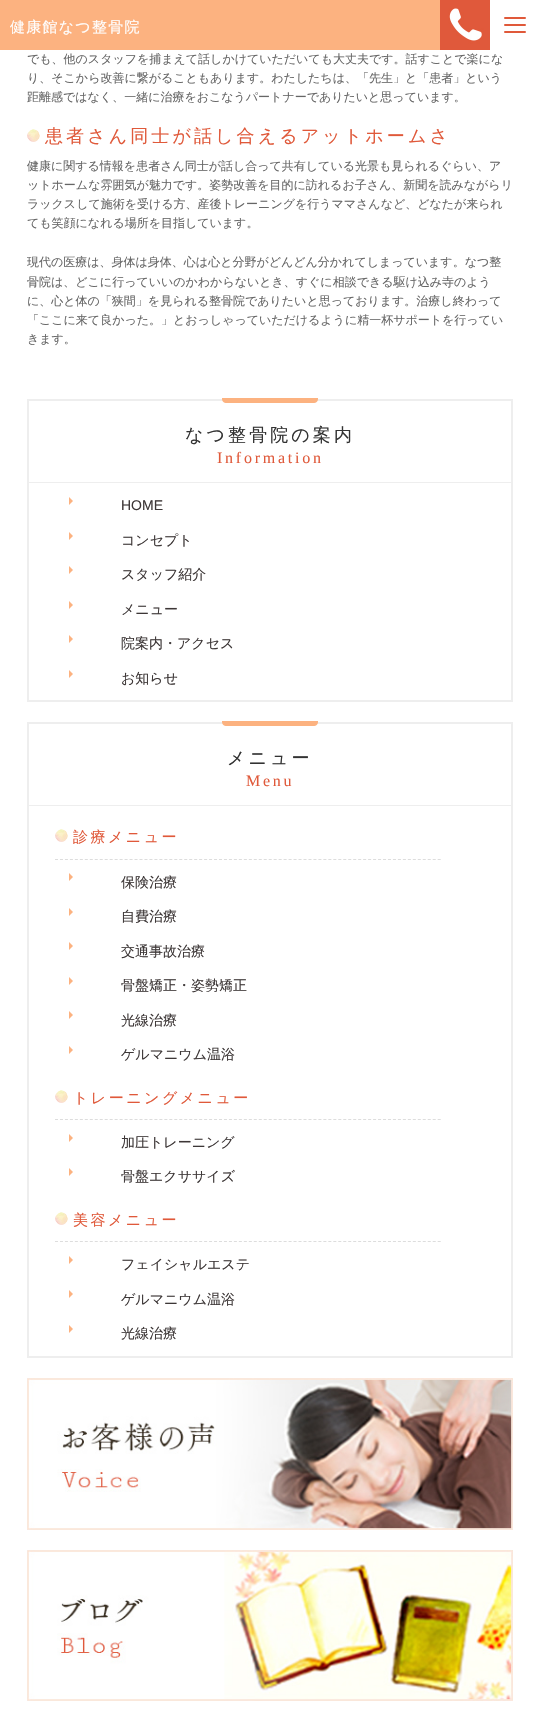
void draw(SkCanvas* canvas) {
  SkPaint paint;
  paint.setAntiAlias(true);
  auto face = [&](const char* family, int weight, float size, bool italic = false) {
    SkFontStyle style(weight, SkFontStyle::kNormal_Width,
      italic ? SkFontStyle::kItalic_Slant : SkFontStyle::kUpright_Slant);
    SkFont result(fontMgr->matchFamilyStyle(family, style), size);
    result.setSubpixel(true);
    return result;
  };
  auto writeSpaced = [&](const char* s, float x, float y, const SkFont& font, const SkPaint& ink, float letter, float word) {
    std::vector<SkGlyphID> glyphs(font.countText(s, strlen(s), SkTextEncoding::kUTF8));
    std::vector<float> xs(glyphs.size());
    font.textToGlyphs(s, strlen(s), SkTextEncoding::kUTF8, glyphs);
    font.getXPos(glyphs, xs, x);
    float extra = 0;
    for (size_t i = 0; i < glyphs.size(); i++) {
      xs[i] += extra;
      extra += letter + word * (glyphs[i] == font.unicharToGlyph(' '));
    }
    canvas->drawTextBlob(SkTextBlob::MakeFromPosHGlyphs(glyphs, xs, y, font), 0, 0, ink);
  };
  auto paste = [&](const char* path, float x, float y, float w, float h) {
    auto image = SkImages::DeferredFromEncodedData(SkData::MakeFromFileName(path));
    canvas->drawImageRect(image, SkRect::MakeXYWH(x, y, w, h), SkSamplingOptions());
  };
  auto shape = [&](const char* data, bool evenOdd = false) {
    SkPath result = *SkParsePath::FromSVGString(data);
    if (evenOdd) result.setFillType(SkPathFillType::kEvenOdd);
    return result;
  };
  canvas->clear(0xffffffff);
  paint.setColor(0xfffcb280);
  canvas->drawRect(SkRect::MakeXYWH(0, 0, 440, 50), paint);
  paste("img/1.png", 440, 0, 50, 50);
  paint.setColor(0xffe0593a);
  canvas->drawRoundRect(SkRect::MakeXYWH(504, 17, 22, 2), 1, 1, paint);
  canvas->drawRoundRect(SkRect::MakeXYWH(504, 24, 22, 2), 1, 1, paint);
  canvas->drawRoundRect(SkRect::MakeXYWH(504, 31, 22, 2), 1, 1, paint);
  paste("img/2.png", 27, 129, 13, 13);
  paint.setStroke(true);
  paint.setStrokeWidth(2);
  paint.setColor(0xffeeeeee);
  canvas->drawRect(SkRect::MakeXYWH(28, 400, 484, 301), paint);
  paste("img/3.png", 222, 398, 96, 5);
  paint.setStroke(false);
  canvas->drawRect(SkRect::MakeXYWH(29, 482, 482, 1), paint);
  paint.setColor(0xfffcb280);
  canvas->drawPath(shape("M69 505V497L73 501Z"), paint);
  canvas->drawPath(shape("M69 540V532L73 536Z"), paint);
  canvas->drawPath(shape("M69 574V566L73 570Z"), paint);
  canvas->drawPath(shape("M69 609V601L73 605Z"), paint);
  canvas->drawPath(shape("M69 643V635L73 639Z"), paint);
  canvas->drawPath(shape("M69 678V670L73 674Z"), paint);
  paint.setStroke(true);
  paint.setColor(0xffeeeeee);
  canvas->drawRect(SkRect::MakeXYWH(28, 723, 484, 634), paint);
  paste("img/3.png", 222, 721, 96, 5);
  paint.setStroke(false);
  canvas->drawRect(SkRect::MakeXYWH(29, 805, 482, 1), paint);
  paint.setStroke(true);
  paint.setStrokeWidth(1);
  paint.setColor(0xffdddddd);
  paint.setPathEffect(SkDashPathEffect::Make({{3, 1.97f}}, 0));
  canvas->drawPath(shape("M55 859.5H441"), paint);
  paint.setPathEffect(nullptr);
  paste("img/2.png", 55, 829, 13, 13);
  paint.setStroke(false);
  paint.setColor(0xfffcb280);
  canvas->drawPath(shape("M69 881V873L73 877Z"), paint);
  canvas->drawPath(shape("M69 916V908L73 912Z"), paint);
  canvas->drawPath(shape("M69 950V942L73 946Z"), paint);
  canvas->drawPath(shape("M69 985V977L73 981Z"), paint);
  canvas->drawPath(shape("M69 1019V1011L73 1015Z"), paint);
  canvas->drawPath(shape("M69 1054V1046L73 1050Z"), paint);
  paint.setStroke(true);
  paint.setColor(0xffdddddd);
  paint.setPathEffect(SkDashPathEffect::Make({{3, 1.97f}}, 0));
  canvas->drawPath(shape("M55 1119.5H441"), paint);
  paint.setPathEffect(nullptr);
  paste("img/2.png", 55, 1090, 13, 13);
  paint.setStroke(false);
  paint.setColor(0xfffcb280);
  canvas->drawPath(shape("M69 1142V1134L73 1138Z"), paint);
  canvas->drawPath(shape("M69 1176V1168L73 1172Z"), paint);
  paint.setStroke(true);
  paint.setColor(0xffdddddd);
  paint.setPathEffect(SkDashPathEffect::Make({{3, 1.97f}}, 0));
  canvas->drawPath(shape("M55 1241.5H441"), paint);
  paint.setPathEffect(nullptr);
  paste("img/2.png", 55, 1212, 13, 13);
  paint.setStroke(false);
  paint.setColor(0xfffcb280);
  canvas->drawPath(shape("M69 1264V1256L73 1260Z"), paint);
  canvas->drawPath(shape("M69 1298V1290L73 1294Z"), paint);
  canvas->drawPath(shape("M69 1333V1325L73 1329Z"), paint);
  paste("img/4.png", 27, 1378, 486, 152);
  paste("img/5.png", 27, 1550, 486, 151);
  auto f0 = face("WenQuanYi Zen Hei", 500, 15);
  paint.setColor(0xffffffff);
  writeSpaced("健康館なつ整骨院", 10, 32, f0, paint, 1.25f, 0);
  auto f1 = face("WenQuanYi Zen Hei", 500, 12);
  paint.setColor(0xff666666);
  {
    const struct { const char* s; float x, y; } items[] = {
      {"でも、他のスタッフを捕まえて話しかけていただいても大丈夫です。話すことで楽にな", 27, 63},
      {"り、そこから改善に繋がることもあります。わたしたちは、「先生」と「患者」という", 27, 82},
      {"距離感ではなく、一緒に治療をおこなうパートナーでありたいと思っています。", 27, 101},
    };
    for (auto [s, x, y] : items) {
      canvas->drawString(s, x, y, f1, paint);
    }
  }
  auto f2 = face("WenQuanYi Zen Hei", 500, 18);
  paint.setColor(0xffe0593a);
  writeSpaced("患者さん同士が話し合えるアットホームさ", 45, 142, f2, paint, 3.1f, 0);
  paint.setColor(0xff666666);
  {
    const struct { const char* s; float x, y; } items[] = {
      {"健康に関する情報を患者さん同士が話し合って共有している光景も見られるぐらい、ア", 27, 170},
      {"ットホームな雰囲気が魅力です。姿勢改善を目的に訪れるお子さん、新聞を読みながらリ", 27, 189},
      {"ラックスして施術を受ける方、産後トレーニングを行うママさんなど、どなたが来られ", 27, 208},
      {"ても笑顔になれる場所を目指しています。", 27, 227},
      {"現代の医療は、身体は身体、心は心と分野がどんどん分かれてしまっています。なつ整", 27, 266},
      {"骨院は、どこに行っていいのかわからないとき、すぐに相談できる駆け込み寺のよう", 27, 286},
      {"に、心と体の「狭間」を見られる整骨院でありたいと思っております。治療し終わって", 27, 305},
      {"「ここに来て良かった。」とおっしゃっていただけるように精一杯サポートを行ってい", 27, 324},
      {"きます。", 27, 343},
    };
    for (auto [s, x, y] : items) {
      canvas->drawString(s, x, y, f1, paint);
    }
  }
  paint.setColor(0xff333333);
  writeSpaced("なつ整骨院の案内", 185, 441, f2, paint, 3.1f, 0);
  auto f3 = face("Liberation Serif", 400, 16);
  paint.setColor(0xffe0593a);
  writeSpaced("Information", 217, 463, f3, paint, 2.75f, 0);
  auto f4 = face("Liberation Sans", 400, 14);
  paint.setColor(0xff3d3737);
  canvas->drawString("HOME", 121, 510, f4, paint);
  auto f5 = face("WenQuanYi Zen Hei", 500, 14);
  {
    const struct { const char* s; float x, y; } items[] = {
      {"コンセプト", 121, 545},
      {"スタッフ紹介", 121, 579},
      {"メニュー", 121, 614},
      {"院案内・アクセス", 121, 648},
      {"お知らせ", 121, 683},
    };
    for (auto [s, x, y] : items) {
      canvas->drawString(s, x, y, f5, paint);
    }
  }
  paint.setColor(0xff333333);
  writeSpaced("メニュー", 227, 764, f2, paint, 3.1f, 0);
  paint.setColor(0xffe0593a);
  writeSpaced("Menu", 246, 786, f3, paint, 2.75f, 0);
  writeSpaced("診療メニュー", 73, 842, f0, paint, 2.5f, 0);
  paint.setColor(0xff3d3737);
  {
    const struct { const char* s; float x, y; } items[] = {
      {"保険治療", 121, 887},
      {"自費治療", 121, 921},
      {"交通事故治療", 121, 956},
      {"骨盤矯正・姿勢矯正", 121, 990},
      {"光線治療", 121, 1025},
      {"ゲルマニウム温浴", 121, 1059},
    };
    for (auto [s, x, y] : items) {
      canvas->drawString(s, x, y, f5, paint);
    }
  }
  paint.setColor(0xffe0593a);
  writeSpaced("トレーニングメニュー", 73, 1103, f0, paint, 2.5f, 0);
  paint.setColor(0xff3d3737);
  canvas->drawString("加圧トレーニング", 121, 1147, f5, paint);
  canvas->drawString("骨盤エクササイズ", 121, 1181, f5, paint);
  paint.setColor(0xffe0593a);
  writeSpaced("美容メニュー", 73, 1225, f0, paint, 2.5f, 0);
  paint.setColor(0xff3d3737);
  {
    const struct { const char* s; float x, y; } items[] = {
      {"フェイシャルエステ", 121, 1269},
      {"ゲルマニウム温浴", 121, 1304},
      {"光線治療", 121, 1338},
    };
    for (auto [s, x, y] : items) {
      canvas->drawString(s, x, y, f5, paint);
    }
  }
}
